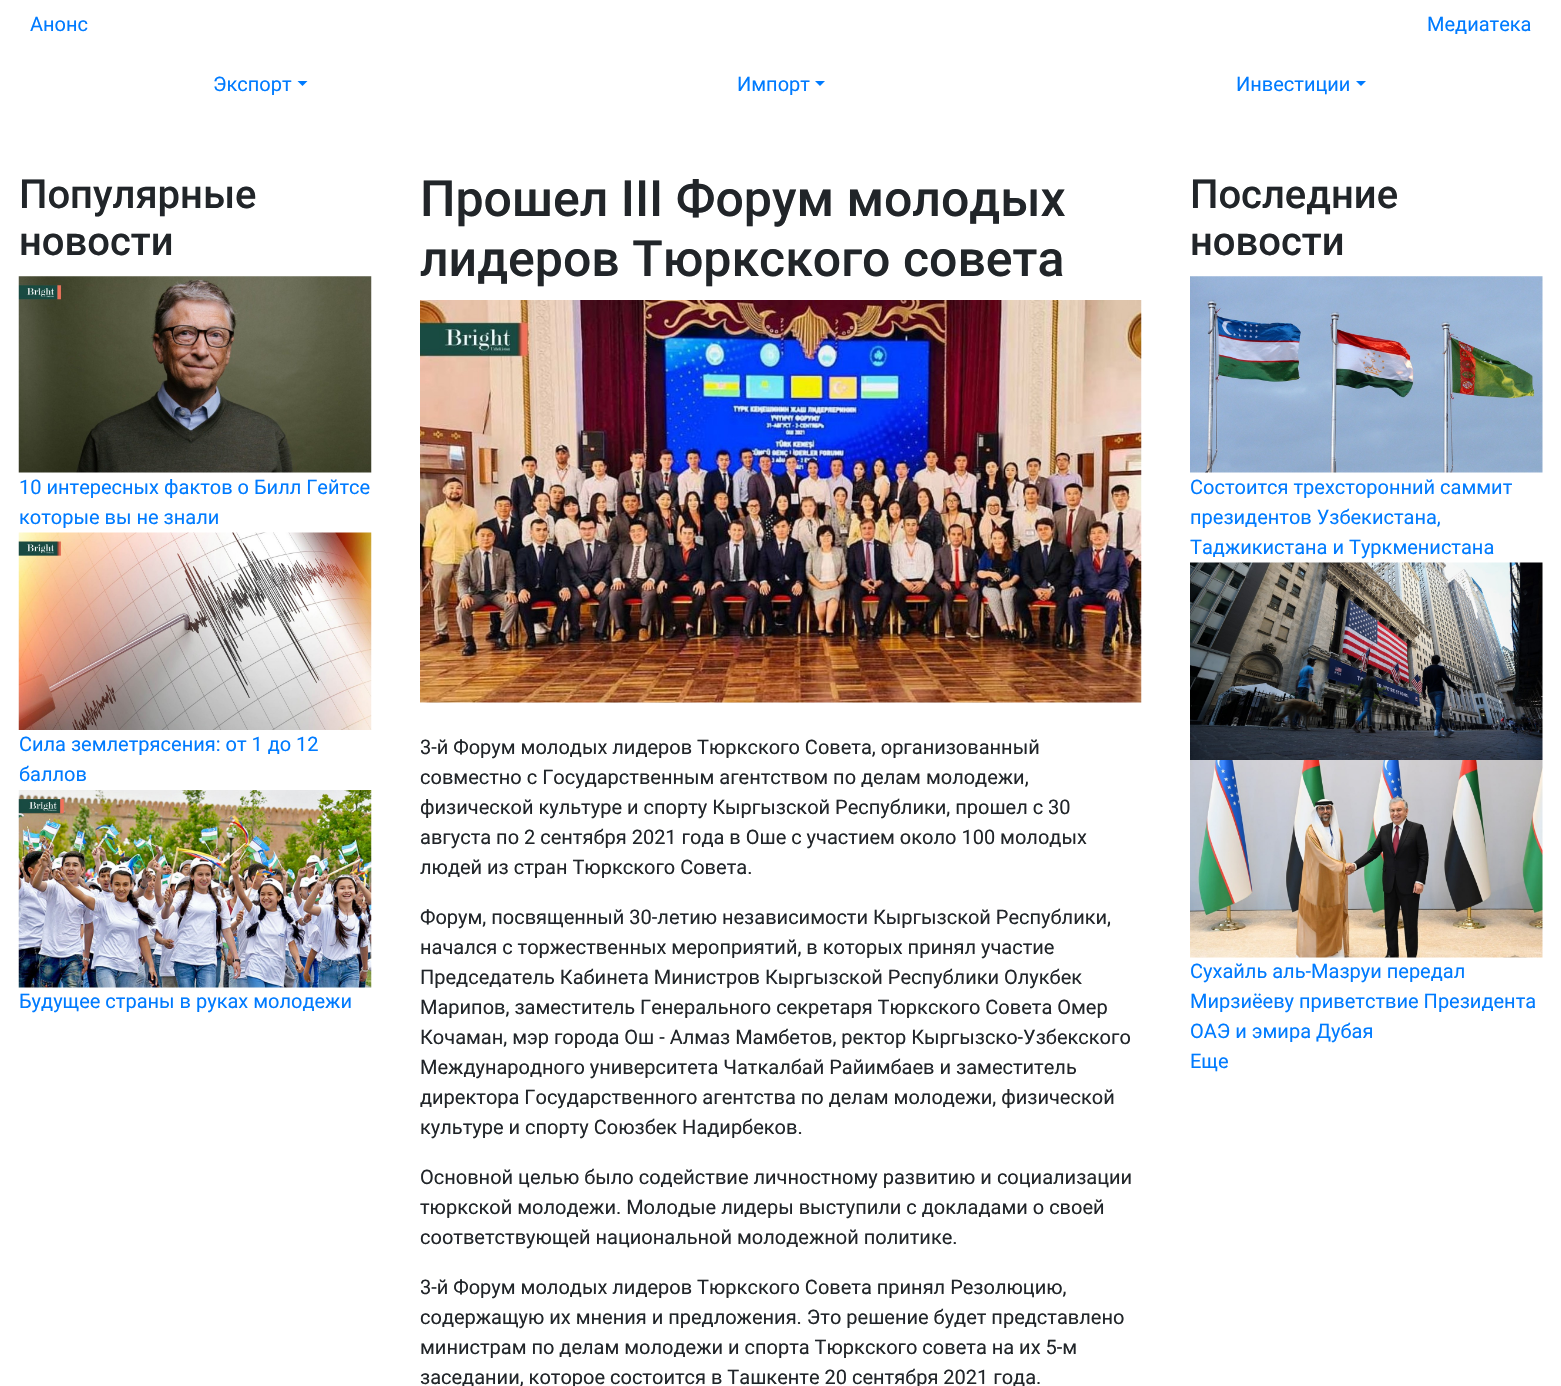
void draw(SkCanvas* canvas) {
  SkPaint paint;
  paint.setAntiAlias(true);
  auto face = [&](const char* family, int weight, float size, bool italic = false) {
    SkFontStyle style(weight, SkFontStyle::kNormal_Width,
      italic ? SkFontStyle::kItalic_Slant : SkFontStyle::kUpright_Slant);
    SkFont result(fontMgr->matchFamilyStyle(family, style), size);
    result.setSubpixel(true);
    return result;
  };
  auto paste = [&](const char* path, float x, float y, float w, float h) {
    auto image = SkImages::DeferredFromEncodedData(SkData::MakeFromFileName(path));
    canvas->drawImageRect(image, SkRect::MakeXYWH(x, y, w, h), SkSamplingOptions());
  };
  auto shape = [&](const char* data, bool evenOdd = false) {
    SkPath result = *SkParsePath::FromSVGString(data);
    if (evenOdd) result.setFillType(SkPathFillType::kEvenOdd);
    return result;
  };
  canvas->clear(0xffffffff);
  paint.setColor(0xff007bff);
  canvas->drawPath(shape("M297.5 81H307.5L302.5 86Z"), paint);
  canvas->drawPath(shape("M815 81H825L820 86Z"), paint);
  canvas->drawPath(shape("M1356 81H1366L1361 86Z"), paint);
  paste("img/1.png", 18, 276, 354, 197);
  paste("img/2.png", 18, 532, 354, 198);
  paste("img/3.png", 18, 790, 354, 198);
  paste("img/4.png", 420, 300, 722, 403);
  paste("img/5.png", 1190, 276, 353, 197);
  paste("img/6.png", 1190, 562, 353, 198);
  paste("img/7.png", 1190, 760, 353, 198);
  auto f0 = face("Roboto", 400, 20);
  {
    const struct { const char* s; float x, y; } items[] = {
      {"Анонс", 30, 31},
      {"Медиатека", 1427, 31},
      {"Экспорт", 213, 91},
      {"Импорт", 737, 91},
      {"Инвестиции", 1236, 91},
    };
    for (auto [s, x, y] : items) {
      canvas->drawString(s, x, y, f0, paint);
    }
  }
  auto f1 = face("Roboto", 500, 40);
  paint.setColor(0xff212529);
  canvas->drawString("Популярные", 19, 208, f1, paint);
  canvas->drawString("новости", 19, 255, f1, paint);
  paint.setColor(0xff007bff);
  {
    const struct { const char* s; float x, y; } items[] = {
      {"10 интересных фактов о Билл Гейтсе", 19, 494},
      {"которые вы не знали", 19, 524},
      {"Сила землетрясения: от 1 до 12", 19, 751},
      {"баллов", 19, 781},
      {"Будущее страны в руках молодежи", 19, 1008},
    };
    for (auto [s, x, y] : items) {
      canvas->drawString(s, x, y, f0, paint);
    }
  }
  auto f2 = face("Roboto", 500, 50);
  paint.setColor(0xff212529);
  canvas->drawString("Прошел III Форум молодых", 420, 216, f2, paint);
  canvas->drawString("лидеров Тюркского совета", 420, 276, f2, paint);
  {
    const struct { const char* s; float x, y; } items[] = {
      {"3-й Форум молодых лидеров Тюркского Совета, организованный", 420, 754},
      {"совместно с Государственным агентством по делам молодежи,", 420, 784},
      {"физической культуре и спорту Кыргызской Республики, прошел с 30", 420, 814},
      {"августа по 2 сентября 2021 года в Оше с участием около 100 молодых", 420, 844},
      {"людей из стран Тюркского Совета.", 420, 874},
      {"Форум, посвященный 30-летию независимости Кыргызской Республики,", 420, 924},
      {"начался с торжественных мероприятий, в которых принял участие", 420, 954},
      {"Председатель Кабинета Министров Кыргызской Республики Олукбек", 420, 984},
      {"Марипов, заместитель Генерального секретаря Тюркского Совета Омер", 420, 1014},
      {"Кочаман, мэр города Ош - Алмаз Мамбетов, ректор Кыргызско-Узбекского", 420, 1044},
      {"Международного университета Чаткалбай Райимбаев и заместитель", 420, 1074},
      {"директора Государственного агентства по делам молодежи, физической", 420, 1104},
      {"культуре и спорту Союзбек Надирбеков.", 420, 1134},
      {"Основной целью было содействие личностному развитию и социализации", 420, 1184},
      {"тюркской молодежи. Молодые лидеры выступили с докладами о своей", 420, 1214},
      {"соответствующей национальной молодежной политике.", 420, 1244},
      {"3-й Форум молодых лидеров Тюркского Совета принял Резолюцию,", 420, 1294},
      {"содержащую их мнения и предложения. Это решение будет представлено", 420, 1324},
      {"министрам по делам молодежи и спорта Тюркского совета на их 5-м", 420, 1354},
      {"заседании, которое состоится в Ташкенте 20 сентября 2021 года.", 420, 1384},
    };
    for (auto [s, x, y] : items) {
      canvas->drawString(s, x, y, f0, paint);
    }
  }
  canvas->drawString("Последние", 1190, 208, f1, paint);
  canvas->drawString("новости", 1190, 255, f1, paint);
  paint.setColor(0xff007bff);
  {
    const struct { const char* s; float x, y; } items[] = {
      {"Состоится трехсторонний саммит", 1190, 494},
      {"президентов Узбекистана,", 1190, 524},
      {"Таджикистана и Туркменистана", 1190, 554},
      {"Сухайль аль-Мазруи передал", 1190, 978},
      {"Мирзиёеву приветствие Президента", 1190, 1008},
      {"ОАЭ и эмира Дубая", 1190, 1038},
      {"Еще", 1190, 1068},
    };
    for (auto [s, x, y] : items) {
      canvas->drawString(s, x, y, f0, paint);
    }
  }
}
